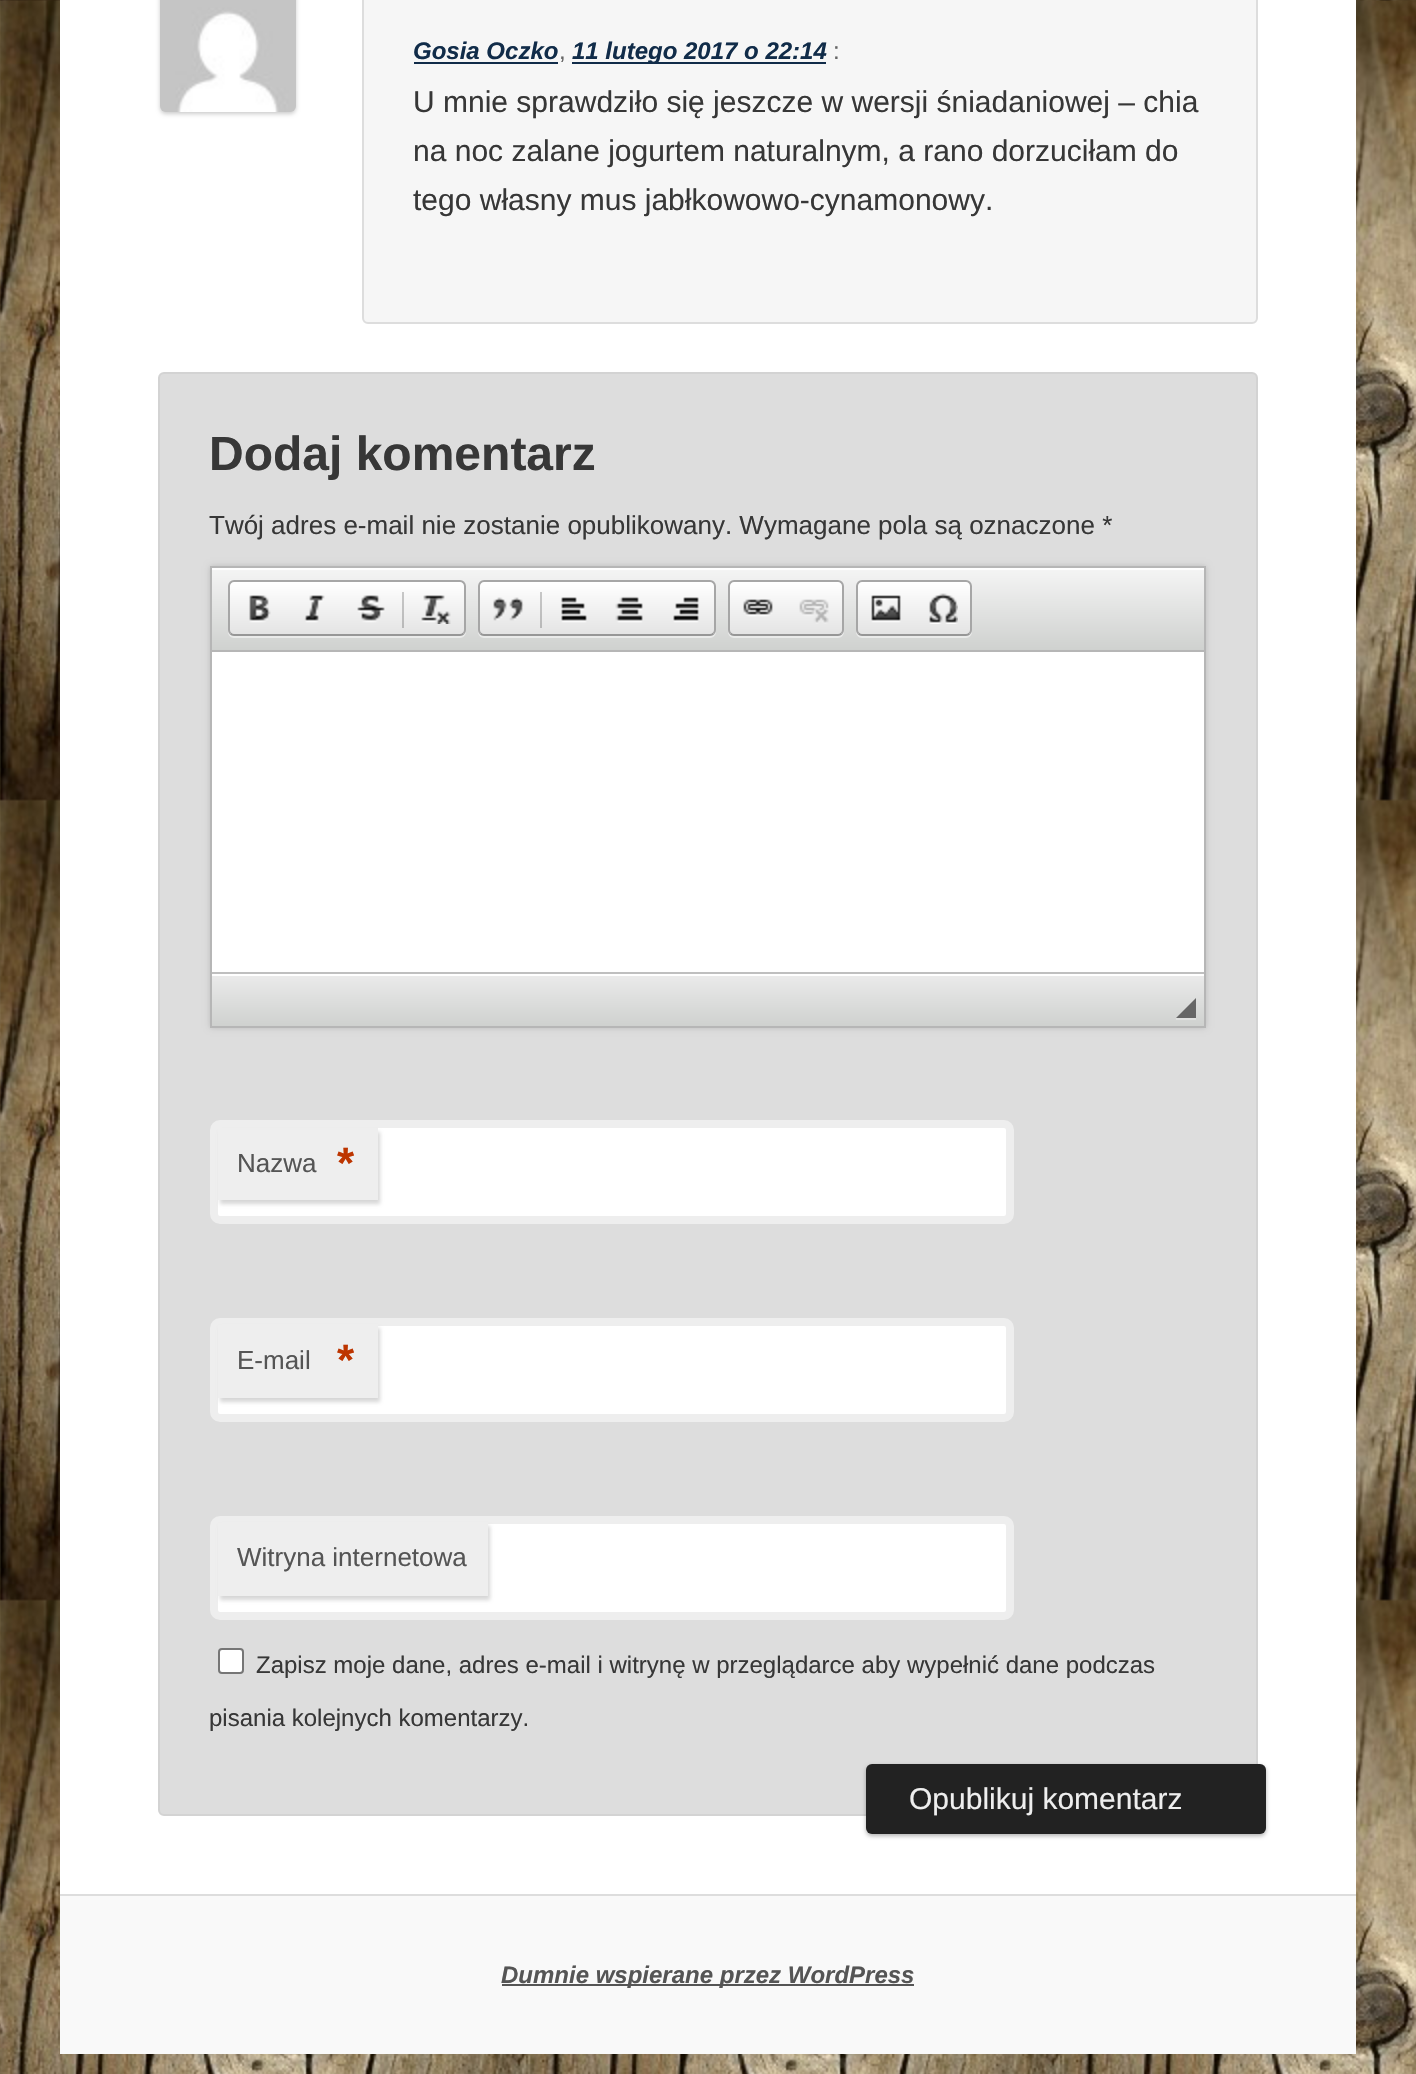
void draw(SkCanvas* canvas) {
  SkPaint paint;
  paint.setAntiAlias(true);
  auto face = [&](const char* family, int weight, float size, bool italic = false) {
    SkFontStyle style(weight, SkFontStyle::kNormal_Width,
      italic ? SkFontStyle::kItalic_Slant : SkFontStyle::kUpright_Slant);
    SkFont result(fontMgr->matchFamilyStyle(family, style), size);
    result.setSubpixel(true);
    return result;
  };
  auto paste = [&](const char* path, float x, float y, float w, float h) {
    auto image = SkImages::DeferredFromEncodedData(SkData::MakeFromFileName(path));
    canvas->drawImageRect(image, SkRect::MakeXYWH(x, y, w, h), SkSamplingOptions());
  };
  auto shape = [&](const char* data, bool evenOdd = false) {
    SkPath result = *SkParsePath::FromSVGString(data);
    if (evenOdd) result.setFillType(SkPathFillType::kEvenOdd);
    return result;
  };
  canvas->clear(0xffffffff);
  paste("img/1.png", 0, 0, 1416, 2074);
  paint.setColor(0xffffffff);
  canvas->drawRect(SkRect::MakeXYWH(60, 0, 1296, 1894), paint);
  paint.setColor(0xfff6f6f6);
  canvas->drawRoundRect(SkRect::MakeXYWH(363, -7, 894, 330), 5, 5, paint);
  paint.setStroke(true);
  paint.setStrokeWidth(2);
  paint.setColor(0xffdddddd);
  canvas->drawRoundRect(SkRect::MakeXYWH(363, -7, 894, 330), 5, 5, paint);
  paint.setStroke(false);
  paint.setColor(0xffcccccc);
  paint.setMaskFilter(SkMaskFilter::MakeBlur(kNormal_SkBlurStyle, 2));
  canvas->drawRoundRect(SkRect::MakeXYWH(160, -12, 136, 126), 6, 6, paint);
  paint.setMaskFilter(nullptr);
  paste("img/2.png", 160, 0, 136, 112);
  paint.setColor(0xff112c49);
  canvas->drawRect(SkRect::MakeXYWH(414, 62, 144, 2), paint);
  canvas->drawRect(SkRect::MakeXYWH(572, 62, 254, 2), paint);
  paint.setColor(0xffdddddd);
  canvas->drawRoundRect(SkRect::MakeXYWH(159, 373, 1098, 1442), 5, 5, paint);
  paint.setStroke(true);
  paint.setColor(0xffd3d3d3);
  canvas->drawRoundRect(SkRect::MakeXYWH(159, 373, 1098, 1442), 5, 5, paint);
  paint.setStroke(false);
  paint.setColor(0x26000000);
  paint.setMaskFilter(SkMaskFilter::MakeBlur(kNormal_SkBlurStyle, 3));
  canvas->drawRect(SkRect::MakeXYWH(210, 566, 996, 462), paint);
  paint.setMaskFilter(nullptr);
  paint.setStroke(true);
  paint.setColor(0xffb6b6b6);
  canvas->drawRect(SkRect::MakeXYWH(211, 567, 994, 460), paint);
  paint.setStroke(false);
  paint.setColor(0xffffffff);
  canvas->drawRect(SkRect::MakeXYWH(212, 652, 992, 320), paint);
  {
    const SkColor colors[] = {0xfff5f5f5, 0xffcfd1cf};
    const float stops[] = {0, 1};
    const SkPoint ends[] = {{708, 568}, {708, 650}};
    paint.setShader(SkGradientShader::MakeLinear(ends, colors, stops, 2, SkTileMode::kClamp));
    paint.setAlpha(255);
  }
  canvas->drawRect(SkRect::MakeXYWH(212, 570, 992, 80), paint);
  paint.setShader(nullptr);
  paint.setColor(0xffffffff);
  canvas->drawRect(SkRect::MakeXYWH(212, 568, 992, 2), paint);
  paint.setColor(0xffb6b6b6);
  canvas->drawRect(SkRect::MakeXYWH(212, 650, 992, 2), paint);
  paint.setColor(0x80ffffff);
  canvas->drawPath(shape("M228 630V632C228 635 231 638 234 638H460C463 638 466 635 466 632V630C466 633 463 636 460 636H234C231 636 228 633 228 630Z"), paint);
  canvas->save();
  canvas->clipPath(shape("M234 580H460C463.5 580 466 582.5 466 586V630C466 633.5 463.5 636 460 636H234C230.5 636 228 633.5 228 630V586C228 582.5 230.5 580 234 580Z"), true);
  {
    const SkColor colors[] = {0xffffffff, 0xffe4e4e4};
    const float stops[] = {0, 1};
    const SkPoint ends[] = {{347, 582}, {347, 634}};
    paint.setShader(SkGradientShader::MakeLinear(ends, colors, stops, 2, SkTileMode::kClamp));
    paint.setAlpha(255);
  }
  canvas->drawRect(SkRect::MakeXYWH(228, 582, 238, 52), paint);
  canvas->restore();
  paint.setStroke(true);
  paint.setShader(nullptr);
  paint.setColor(0xff979797);
  canvas->drawPath(shape("M463.5 633.5C462.5 634.5 461.5 635 460 635H234C232.5 635 231.5 634.5 230.5 633.5"), paint);
  paint.setColor(0xffa6a6a6);
  canvas->drawPath(shape("M230.5 633.5C229.5 632.5 229 631.5 229 630V586C229 584.5 229.5 583.5 230.5 582.5C231.5 581.5 232.5 581 234 581H460C461.5 581 462.5 581.5 463.5 582.5C464.5 583.5 465 584.5 465 586V630C465 631.5 464.5 632.5 463.5 633.5"), paint);
  paste("img/3.png", 249, 595, 22, 28);
  paste("img/4.png", 304, 595, 21, 28);
  paste("img/5.png", 357, 595, 28, 28);
  paint.setStroke(false);
  paint.setColor(0x33000000);
  canvas->drawRect(SkRect::MakeXYWH(402, 592, 2, 36), paint);
  paste("img/6.png", 421, 595, 30, 29);
  paint.setColor(0x80ffffff);
  canvas->drawPath(shape("M478 630V632C478 635 481 638 484 638H710C713 638 716 635 716 632V630C716 633 713 636 710 636H484C481 636 478 633 478 630Z"), paint);
  canvas->save();
  canvas->clipPath(shape("M484 580H710C713.5 580 716 582.5 716 586V630C716 633.5 713.5 636 710 636H484C480.5 636 478 633.5 478 630V586C478 582.5 480.5 580 484 580Z"), true);
  {
    const SkColor colors[] = {0xffffffff, 0xffe4e4e4};
    const float stops[] = {0, 1};
    const SkPoint ends[] = {{597, 582}, {597, 634}};
    paint.setShader(SkGradientShader::MakeLinear(ends, colors, stops, 2, SkTileMode::kClamp));
    paint.setAlpha(255);
  }
  canvas->drawRect(SkRect::MakeXYWH(478, 582, 238, 52), paint);
  canvas->restore();
  paint.setStroke(true);
  paint.setShader(nullptr);
  paint.setColor(0xff979797);
  canvas->drawPath(shape("M713.5 633.5C712.5 634.5 711.5 635 710 635H484C482.5 635 481.5 634.5 480.5 633.5"), paint);
  paint.setColor(0xffa6a6a6);
  canvas->drawPath(shape("M480.5 633.5C479.5 632.5 479 631.5 479 630V586C479 584.5 479.5 583.5 480.5 582.5C481.5 581.5 482.5 581 484 581H710C711.5 581 712.5 581.5 713.5 582.5C714.5 583.5 715 584.5 715 586V630C715 631.5 714.5 632.5 713.5 633.5"), paint);
  paste("img/7.png", 493, 597, 31, 24);
  paint.setStroke(false);
  paint.setColor(0x33000000);
  canvas->drawRect(SkRect::MakeXYWH(540, 592, 2, 36), paint);
  paste("img/8.png", 561, 597, 26, 26);
  paste("img/9.png", 615, 596, 28, 27);
  paste("img/10.png", 673, 597, 26, 26);
  paint.setColor(0x80ffffff);
  canvas->drawPath(shape("M728 630V632C728 635 731 638 734 638H838C841 638 844 635 844 632V630C844 633 841 636 838 636H734C731 636 728 633 728 630Z"), paint);
  canvas->save();
  canvas->clipPath(shape("M734 580H838C841.5 580 844 582.5 844 586V630C844 633.5 841.5 636 838 636H734C730.5 636 728 633.5 728 630V586C728 582.5 730.5 580 734 580Z"), true);
  {
    const SkColor colors[] = {0xffffffff, 0xffe4e4e4};
    const float stops[] = {0, 1};
    const SkPoint ends[] = {{786, 582}, {786, 634}};
    paint.setShader(SkGradientShader::MakeLinear(ends, colors, stops, 2, SkTileMode::kClamp));
    paint.setAlpha(255);
  }
  canvas->drawRect(SkRect::MakeXYWH(728, 582, 116, 52), paint);
  canvas->restore();
  paint.setStroke(true);
  paint.setShader(nullptr);
  paint.setColor(0xff979797);
  canvas->drawPath(shape("M841.5 633.5C840.5 634.5 839.5 635 838 635H734C732.5 635 731.5 634.5 730.5 633.5"), paint);
  paint.setColor(0xffa6a6a6);
  canvas->drawPath(shape("M730.5 633.5C729.5 632.5 729 631.5 729 630V586C729 584.5 729.5 583.5 730.5 582.5C731.5 581.5 732.5 581 734 581H838C839.5 581 840.5 581.5 841.5 582.5C842.5 583.5 843 584.5 843 586V630C843 631.5 842.5 632.5 841.5 633.5"), paint);
  paste("img/11.png", 743, 599, 30, 18);
  paste("img/12.png", 799, 599, 30, 25);
  paint.setStroke(false);
  paint.setColor(0x80ffffff);
  canvas->drawPath(shape("M856 630V632C856 635 859 638 862 638H966C969 638 972 635 972 632V630C972 633 969 636 966 636H862C859 636 856 633 856 630Z"), paint);
  canvas->save();
  canvas->clipPath(shape("M862 580H966C969.5 580 972 582.5 972 586V630C972 633.5 969.5 636 966 636H862C858.5 636 856 633.5 856 630V586C856 582.5 858.5 580 862 580Z"), true);
  {
    const SkColor colors[] = {0xffffffff, 0xffe4e4e4};
    const float stops[] = {0, 1};
    const SkPoint ends[] = {{914, 582}, {914, 634}};
    paint.setShader(SkGradientShader::MakeLinear(ends, colors, stops, 2, SkTileMode::kClamp));
    paint.setAlpha(255);
  }
  canvas->drawRect(SkRect::MakeXYWH(856, 582, 116, 52), paint);
  canvas->restore();
  paint.setStroke(true);
  paint.setShader(nullptr);
  paint.setColor(0xff979797);
  canvas->drawPath(shape("M969.5 633.5C968.5 634.5 967.5 635 966 635H862C860.5 635 859.5 634.5 858.5 633.5"), paint);
  paint.setColor(0xffa6a6a6);
  canvas->drawPath(shape("M858.5 633.5C857.5 632.5 857 631.5 857 630V586C857 584.5 857.5 583.5 858.5 582.5C859.5 581.5 860.5 581 862 581H966C967.5 581 968.5 581.5 969.5 582.5C970.5 583.5 971 584.5 971 586V630C971 631.5 970.5 632.5 969.5 633.5"), paint);
  paste("img/13.png", 871, 595, 30, 28);
  paste("img/14.png", 929, 593, 29, 31);
  paint.setStroke(false);
  {
    const SkColor colors[] = {0xffebebeb, 0xffcfd1cf};
    const float stops[] = {0, 1};
    const SkPoint ends[] = {{708, 974}, {708, 1026}};
    paint.setShader(SkGradientShader::MakeLinear(ends, colors, stops, 2, SkTileMode::kClamp));
    paint.setAlpha(255);
  }
  canvas->drawRect(SkRect::MakeXYWH(212, 976, 992, 50), paint);
  paint.setShader(nullptr);
  {
    const struct { float x, y, w, h; SkColor color; } items[] = {
      {212, 974, 992, 2, 0xffffffff},
      {212, 972, 992, 2, 0xffbfbfbf},
      {1176, 1018, 20, 2, 0xffe0e1e0},
    };
    for (auto [x, y, w, h, color] : items) {
      paint.setColor(color);
      canvas->drawRect(SkRect::MakeXYWH(x, y, w, h), paint);
    }
  }
  paint.setColor(0xff666666);
  canvas->drawPath(shape("M1196 998V1018H1176Z"), paint);
  paint.setColor(0xffffffff);
  canvas->drawRoundRect(SkRect::MakeXYWH(214, 1124, 796, 96), 6, 6, paint);
  paint.setStroke(true);
  paint.setStrokeWidth(8);
  paint.setColor(0xffeeeeee);
  canvas->drawRoundRect(SkRect::MakeXYWH(214, 1124, 796, 96), 6, 6, paint);
  paint.setStroke(false);
  paint.setColor(0xcccccccc);
  paint.setMaskFilter(SkMaskFilter::MakeBlur(kNormal_SkBlurStyle, 2));
  canvas->drawRect(SkRect::MakeXYWH(220, 1132, 160, 72), paint);
  paint.setMaskFilter(nullptr);
  paint.setColor(0xffeeeeee);
  canvas->drawRect(SkRect::MakeXYWH(218, 1128, 160, 72), paint);
  paint.setColor(0xffffffff);
  canvas->drawRoundRect(SkRect::MakeXYWH(214, 1322, 796, 96), 6, 6, paint);
  paint.setStroke(true);
  paint.setColor(0xffeeeeee);
  canvas->drawRoundRect(SkRect::MakeXYWH(214, 1322, 796, 96), 6, 6, paint);
  paint.setStroke(false);
  paint.setColor(0xcccccccc);
  paint.setMaskFilter(SkMaskFilter::MakeBlur(kNormal_SkBlurStyle, 2));
  canvas->drawRect(SkRect::MakeXYWH(220, 1328, 160, 74), paint);
  paint.setMaskFilter(nullptr);
  paint.setColor(0xffeeeeee);
  canvas->drawRect(SkRect::MakeXYWH(218, 1325, 160, 73), paint);
  paint.setColor(0xffffffff);
  canvas->drawRoundRect(SkRect::MakeXYWH(214, 1520, 796, 96), 6, 6, paint);
  paint.setStroke(true);
  paint.setColor(0xffeeeeee);
  canvas->drawRoundRect(SkRect::MakeXYWH(214, 1520, 796, 96), 6, 6, paint);
  paint.setStroke(false);
  paint.setColor(0xcccccccc);
  paint.setMaskFilter(SkMaskFilter::MakeBlur(kNormal_SkBlurStyle, 2));
  canvas->drawRect(SkRect::MakeXYWH(220, 1526, 270, 74), paint);
  paint.setMaskFilter(nullptr);
  paint.setColor(0xffeeeeee);
  canvas->drawRect(SkRect::MakeXYWH(218, 1523, 270, 73), paint);
  paint.setColor(0xffffffff);
  canvas->drawRoundRect(SkRect::MakeXYWH(219, 1649, 24, 24), 3, 3, paint);
  paint.setStroke(true);
  paint.setStrokeWidth(2);
  paint.setColor(0xff767676);
  canvas->drawRoundRect(SkRect::MakeXYWH(219, 1649, 24, 24), 3, 3, paint);
  paint.setStroke(false);
  paint.setColor(0x4d000000);
  paint.setMaskFilter(SkMaskFilter::MakeBlur(kNormal_SkBlurStyle, 2));
  canvas->drawRoundRect(SkRect::MakeXYWH(866, 1766, 400, 70), 6, 6, paint);
  paint.setMaskFilter(nullptr);
  paint.setColor(0xff222222);
  canvas->drawRoundRect(SkRect::MakeXYWH(866, 1764, 400, 70), 6, 6, paint);
  {
    const struct { float x, y, w, h; SkColor color; } items[] = {
      {60, 1896, 1296, 158, 0xfff9f9f9},
      {60, 1894, 1296, 2, 0xffdddddd},
      {502, 1984, 412, 2, 0xff555555},
    };
    for (auto [x, y, w, h, color] : items) {
      paint.setColor(color);
      canvas->drawRect(SkRect::MakeXYWH(x, y, w, h), paint);
    }
  }
  auto f0 = face("Liberation Sans", 700, 24, true);
  paint.setColor(0xff112c49);
  canvas->drawString("Gosia Oczko", 413, 59, f0, paint);
  auto f1 = face("Liberation Sans", 400, 24);
  paint.setColor(0xff666666);
  canvas->drawString(",", 559, 59, f1, paint);
  paint.setColor(0xff112c49);
  canvas->drawString("11 lutego 2017 o 22:14", 572, 59, f0, paint);
  paint.setColor(0xff666666);
  canvas->drawString(":", 833, 59, f1, paint);
  auto f2 = face("Liberation Sans", 400, 30);
  paint.setColor(0xff373737);
  {
    const struct { const char* s; float x, y; } items[] = {
      {"U mnie sprawdziło się jeszcze w wersji śniadaniowej – chia", 413, 112},
      {"na noc zalane jogurtem naturalnym, a rano dorzuciłam do", 413, 161},
      {"tego własny mus jabłkowowo-cynamonowy.", 413, 210},
    };
    for (auto [s, x, y] : items) {
      canvas->drawString(s, x, y, f2, paint);
    }
  }
  auto f3 = face("Liberation Sans", 700, 48);
  canvas->drawString("Dodaj komentarz", 209, 470, f3, paint);
  auto f4 = face("Liberation Sans", 400, 26);
  canvas->drawString("Twój adres e-mail nie zostanie opublikowany. Wymagane pola są oznaczone *", 209, 534, f4, paint);
  paint.setColor(0xff555555);
  canvas->drawString("Nazwa", 237, 1172, f4, paint);
  auto f5 = face("Liberation Sans", 700, 44);
  paint.setColor(0xffbd3500);
  canvas->drawString("*", 337, 1178, f5, paint);
  paint.setColor(0xff555555);
  canvas->drawString("E-mail", 237, 1369, f4, paint);
  paint.setColor(0xffbd3500);
  canvas->drawString("*", 337, 1375, f5, paint);
  paint.setColor(0xff555555);
  canvas->drawString("Witryna internetowa", 237, 1566, f4, paint);
  paint.setColor(0xff373737);
  canvas->drawString("Zapisz moje dane, adres e-mail i witrynę w przeglądarce aby wypełnić dane podczas", 256, 1673, f1, paint);
  canvas->drawString("pisania kolejnych komentarzy.", 209, 1726, f1, paint);
  paint.setColor(0xffeeeeee);
  canvas->drawString("Opublikuj komentarz", 909, 1809, f2, paint);
  paint.setColor(0xff555555);
  canvas->drawString("Dumnie wspierane przez WordPress", 501, 1983, f0, paint);
}
